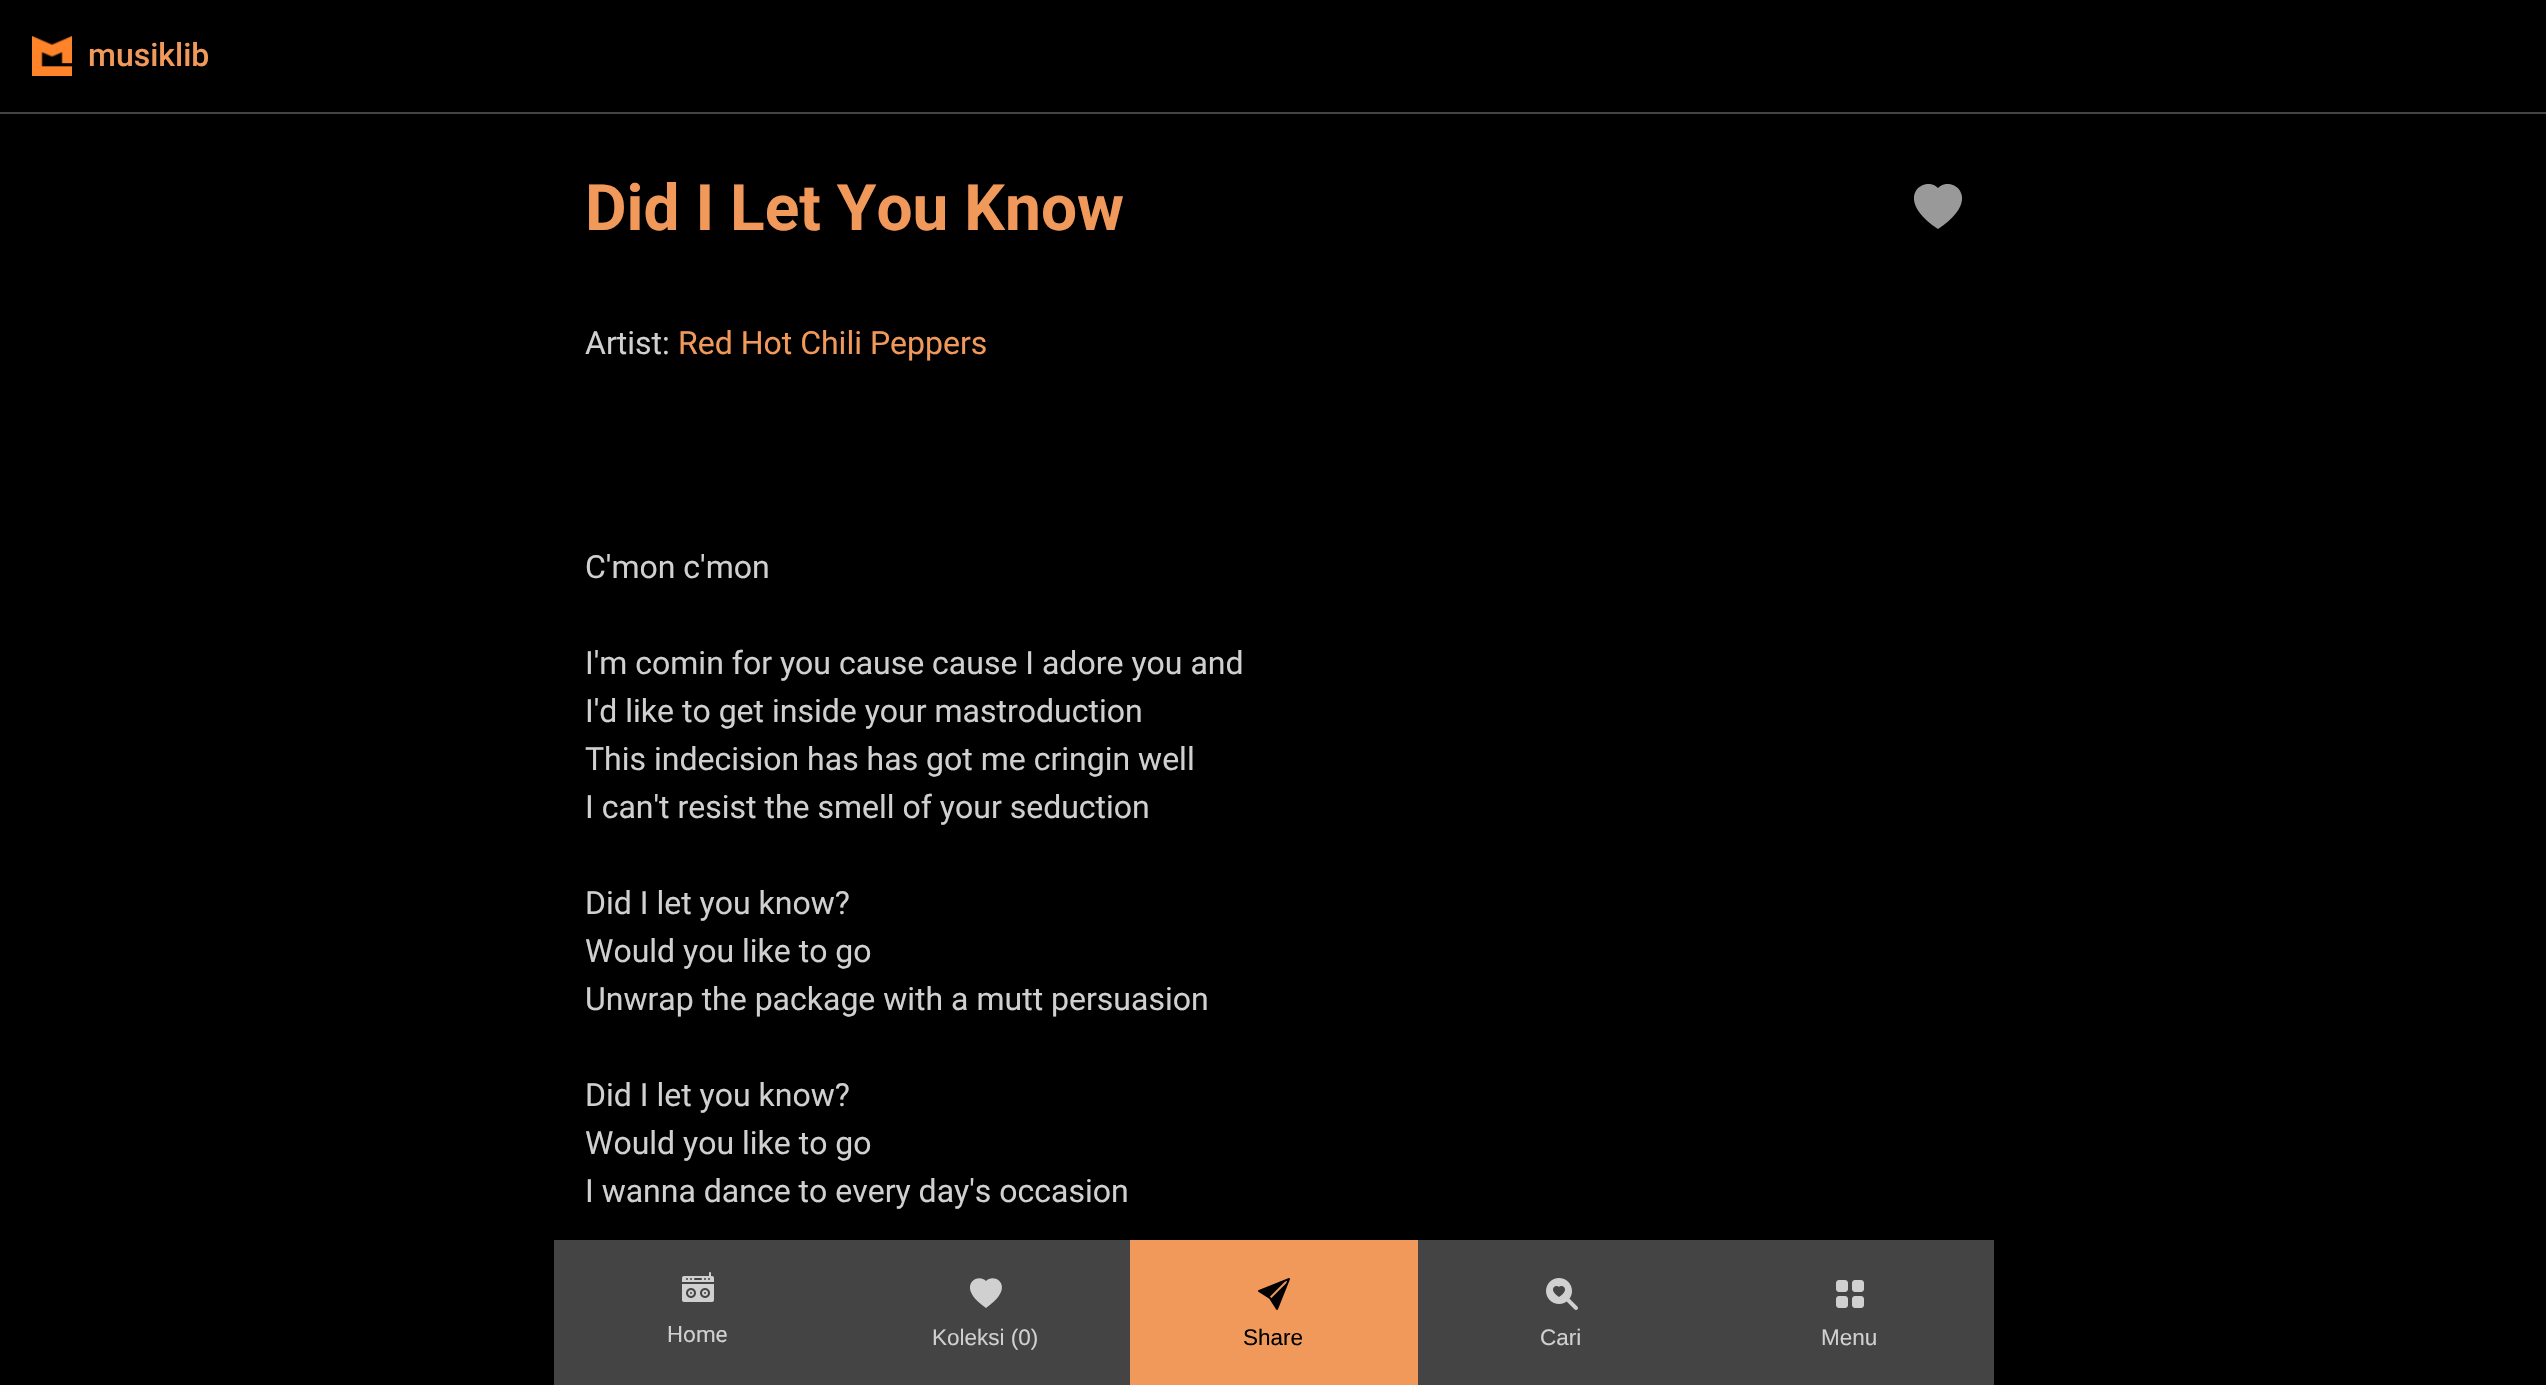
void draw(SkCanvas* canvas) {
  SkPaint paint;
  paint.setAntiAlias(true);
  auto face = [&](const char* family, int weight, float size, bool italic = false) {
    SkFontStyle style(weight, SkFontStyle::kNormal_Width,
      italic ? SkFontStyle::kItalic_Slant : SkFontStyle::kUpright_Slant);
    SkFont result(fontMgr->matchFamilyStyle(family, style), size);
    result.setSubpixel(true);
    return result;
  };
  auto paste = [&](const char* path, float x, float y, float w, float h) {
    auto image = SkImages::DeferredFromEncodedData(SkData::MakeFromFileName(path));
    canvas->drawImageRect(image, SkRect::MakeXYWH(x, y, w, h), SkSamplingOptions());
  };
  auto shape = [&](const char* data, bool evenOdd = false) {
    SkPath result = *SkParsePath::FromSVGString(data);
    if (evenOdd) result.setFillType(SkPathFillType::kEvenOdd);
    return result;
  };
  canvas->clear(0xff000000);
  paint.setColor(0xff444444);
  canvas->drawRect(SkRect::MakeXYWH(0, 112, 2546, 2), paint);
  paste("img/1.png", 32, 36, 40, 40);
  canvas->save();
  canvas->clipRect(SkRect::MakeXYWH(1914, 184, 48, 48));
  paint.setColor(0xff999999);
  canvas->drawPath(shape("M1938 188C1951 174 1985 198 1938 229C1891 198 1925 174 1938 188", true), paint);
  canvas->restore();
  paint.setColor(0xff444444);
  canvas->drawRect(SkRect::MakeXYWH(554, 1240, 576, 145), paint);
  paste("img/2.png", 682, 1272, 32, 30);
  paint.setColor(0xffd0d0d0);
  canvas->drawPath(shape("M986 1281C995 1272 1017 1287 986 1308C955 1287 977 1272 986 1281", true), paint);
  paint.setColor(0xfff1995b);
  canvas->drawRect(SkRect::MakeXYWH(1130, 1240, 288, 145), paint);
  paste("img/3.png", 1258, 1278, 32, 32);
  paint.setColor(0xff444444);
  canvas->drawRect(SkRect::MakeXYWH(1418, 1240, 576, 145), paint);
  paste("img/4.png", 1546, 1278, 32, 32);
  paste("img/5.png", 1836, 1280, 28, 28);
  auto f0 = face("Roboto", 500, 32);
  paint.setColor(0xfff1995b);
  canvas->drawString("musiklib", 88, 66, f0, paint);
  auto f1 = face("Roboto", 700, 64);
  canvas->drawString("Did I Let You Know", 585, 230, f1, paint);
  auto f2 = face("Roboto", 400, 32);
  paint.setColor(0xffd0d0d0);
  canvas->drawString("Artist:", 585, 354, f2, paint);
  paint.setColor(0xfff1995b);
  canvas->drawString("Red Hot Chili Peppers", 678, 354, f2, paint);
  paint.setColor(0xffd0d0d0);
  {
    const struct { const char* s; float x, y; } items[] = {
      {"C'mon c'mon", 585, 578},
      {"I'm comin for you cause cause I adore you and", 585, 674},
      {"I'd like to get inside your mastroduction", 585, 722},
      {"This indecision has has got me cringin well", 585, 770},
      {"I can't resist the smell of your seduction", 585, 818},
      {"Did I let you know?", 585, 914},
      {"Would you like to go", 585, 962},
      {"Unwrap the package with a mutt persuasion", 585, 1010},
      {"Did I let you know?", 585, 1106},
      {"Would you like to go", 585, 1154},
      {"I wanna dance to every day's occasion", 585, 1202},
    };
    for (auto [s, x, y] : items) {
      canvas->drawString(s, x, y, f2, paint);
    }
  }
  auto f3 = face("Roboto", 400, 22.5f);
  canvas->drawString("Home", 667, 1342, f3, paint);
  auto f4 = face("Liberation Sans", 400, 22.5f);
  canvas->drawString("Koleksi (0)", 932, 1345, f4, paint);
  paint.setColor(0xff000000);
  canvas->drawString("Share", 1243, 1345, f4, paint);
  paint.setColor(0xffd0d0d0);
  canvas->drawString("Cari", 1540, 1345, f4, paint);
  canvas->drawString("Menu", 1821, 1345, f4, paint);
}
